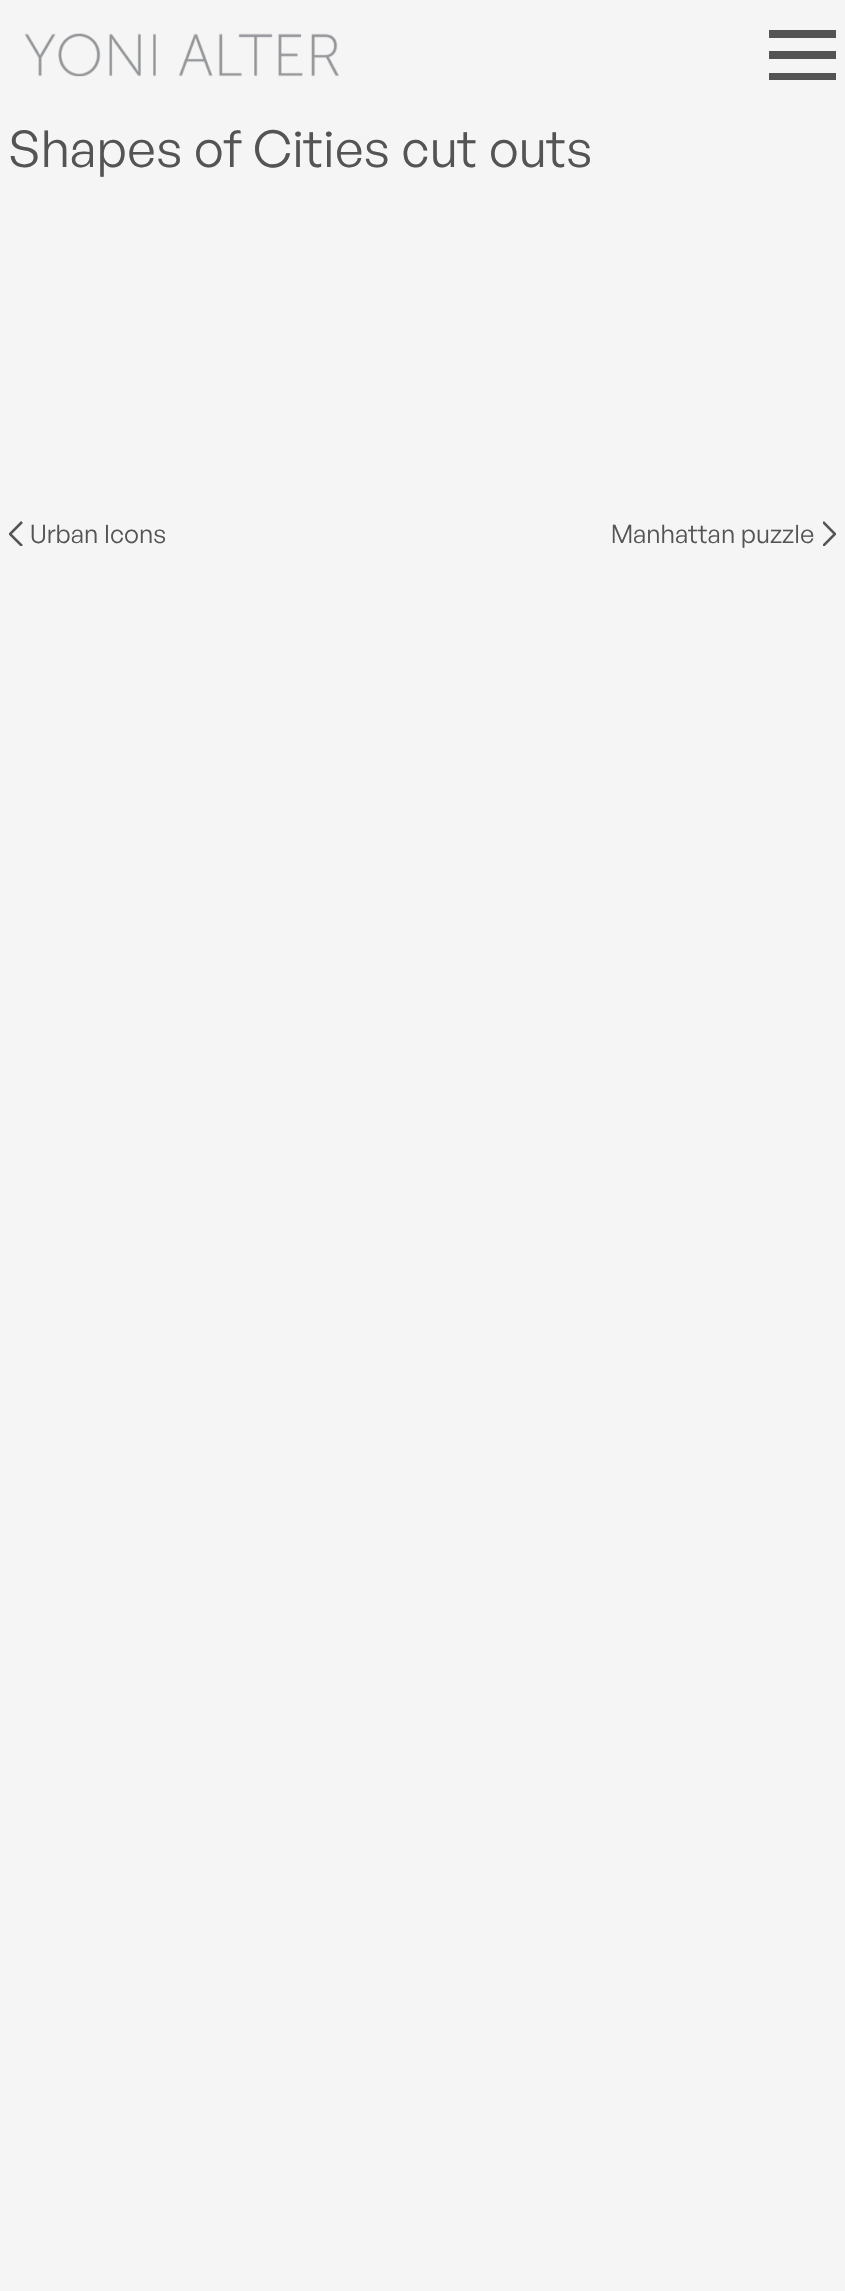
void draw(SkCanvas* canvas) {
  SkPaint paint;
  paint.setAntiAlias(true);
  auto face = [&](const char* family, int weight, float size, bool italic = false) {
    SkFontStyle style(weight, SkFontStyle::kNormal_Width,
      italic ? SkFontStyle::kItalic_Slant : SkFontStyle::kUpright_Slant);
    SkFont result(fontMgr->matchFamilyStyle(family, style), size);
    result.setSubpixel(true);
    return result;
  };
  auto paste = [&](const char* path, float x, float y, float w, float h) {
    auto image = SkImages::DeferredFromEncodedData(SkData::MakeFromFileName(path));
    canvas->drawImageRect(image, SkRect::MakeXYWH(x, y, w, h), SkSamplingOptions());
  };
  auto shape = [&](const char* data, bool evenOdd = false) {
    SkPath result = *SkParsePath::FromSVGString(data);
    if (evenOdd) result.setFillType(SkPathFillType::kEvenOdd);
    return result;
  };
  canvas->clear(0xfff5f5f5);
  paste("img/1.png", 25, 33, 314, 44);
  {
    const struct { float x, y, w, h; SkColor color; } items[] = {
      {769, 30, 67, 8, 0xff545454},
      {769, 51, 67, 8, 0xff545454},
      {769, 73, 67, 7, 0xff545454},
    };
    for (auto [x, y, w, h, color] : items) {
      paint.setColor(color);
      canvas->drawRect(SkRect::MakeXYWH(x, y, w, h), paint);
    }
  }
  canvas->save();
  canvas->clipRect(SkRect::MakeXYWH(9, 521, 14, 25));
  paint.setStroke(true);
  paint.setStrokeWidth(2.6f);
  canvas->drawPath(shape("M22 522L10 534L22 546"), paint);
  canvas->restore();
  canvas->save();
  canvas->clipRect(SkRect::MakeXYWH(823, 521, 13, 25));
  canvas->drawPath(shape("M823 546L835 534L823 522"), paint);
  canvas->restore();
  auto f0 = face("General Sans", 400, 50.75f);
  paint.setStroke(false);
  canvas->drawString("Shapes of Cities cut outs", 8, 167, f0, paint);
  auto f1 = face("General Sans", 400, 25.25f);
  canvas->drawString("Urban Icons", 30, 543, f1, paint);
  canvas->drawString("Manhattan puzzle", 611, 543, f1, paint);
}
